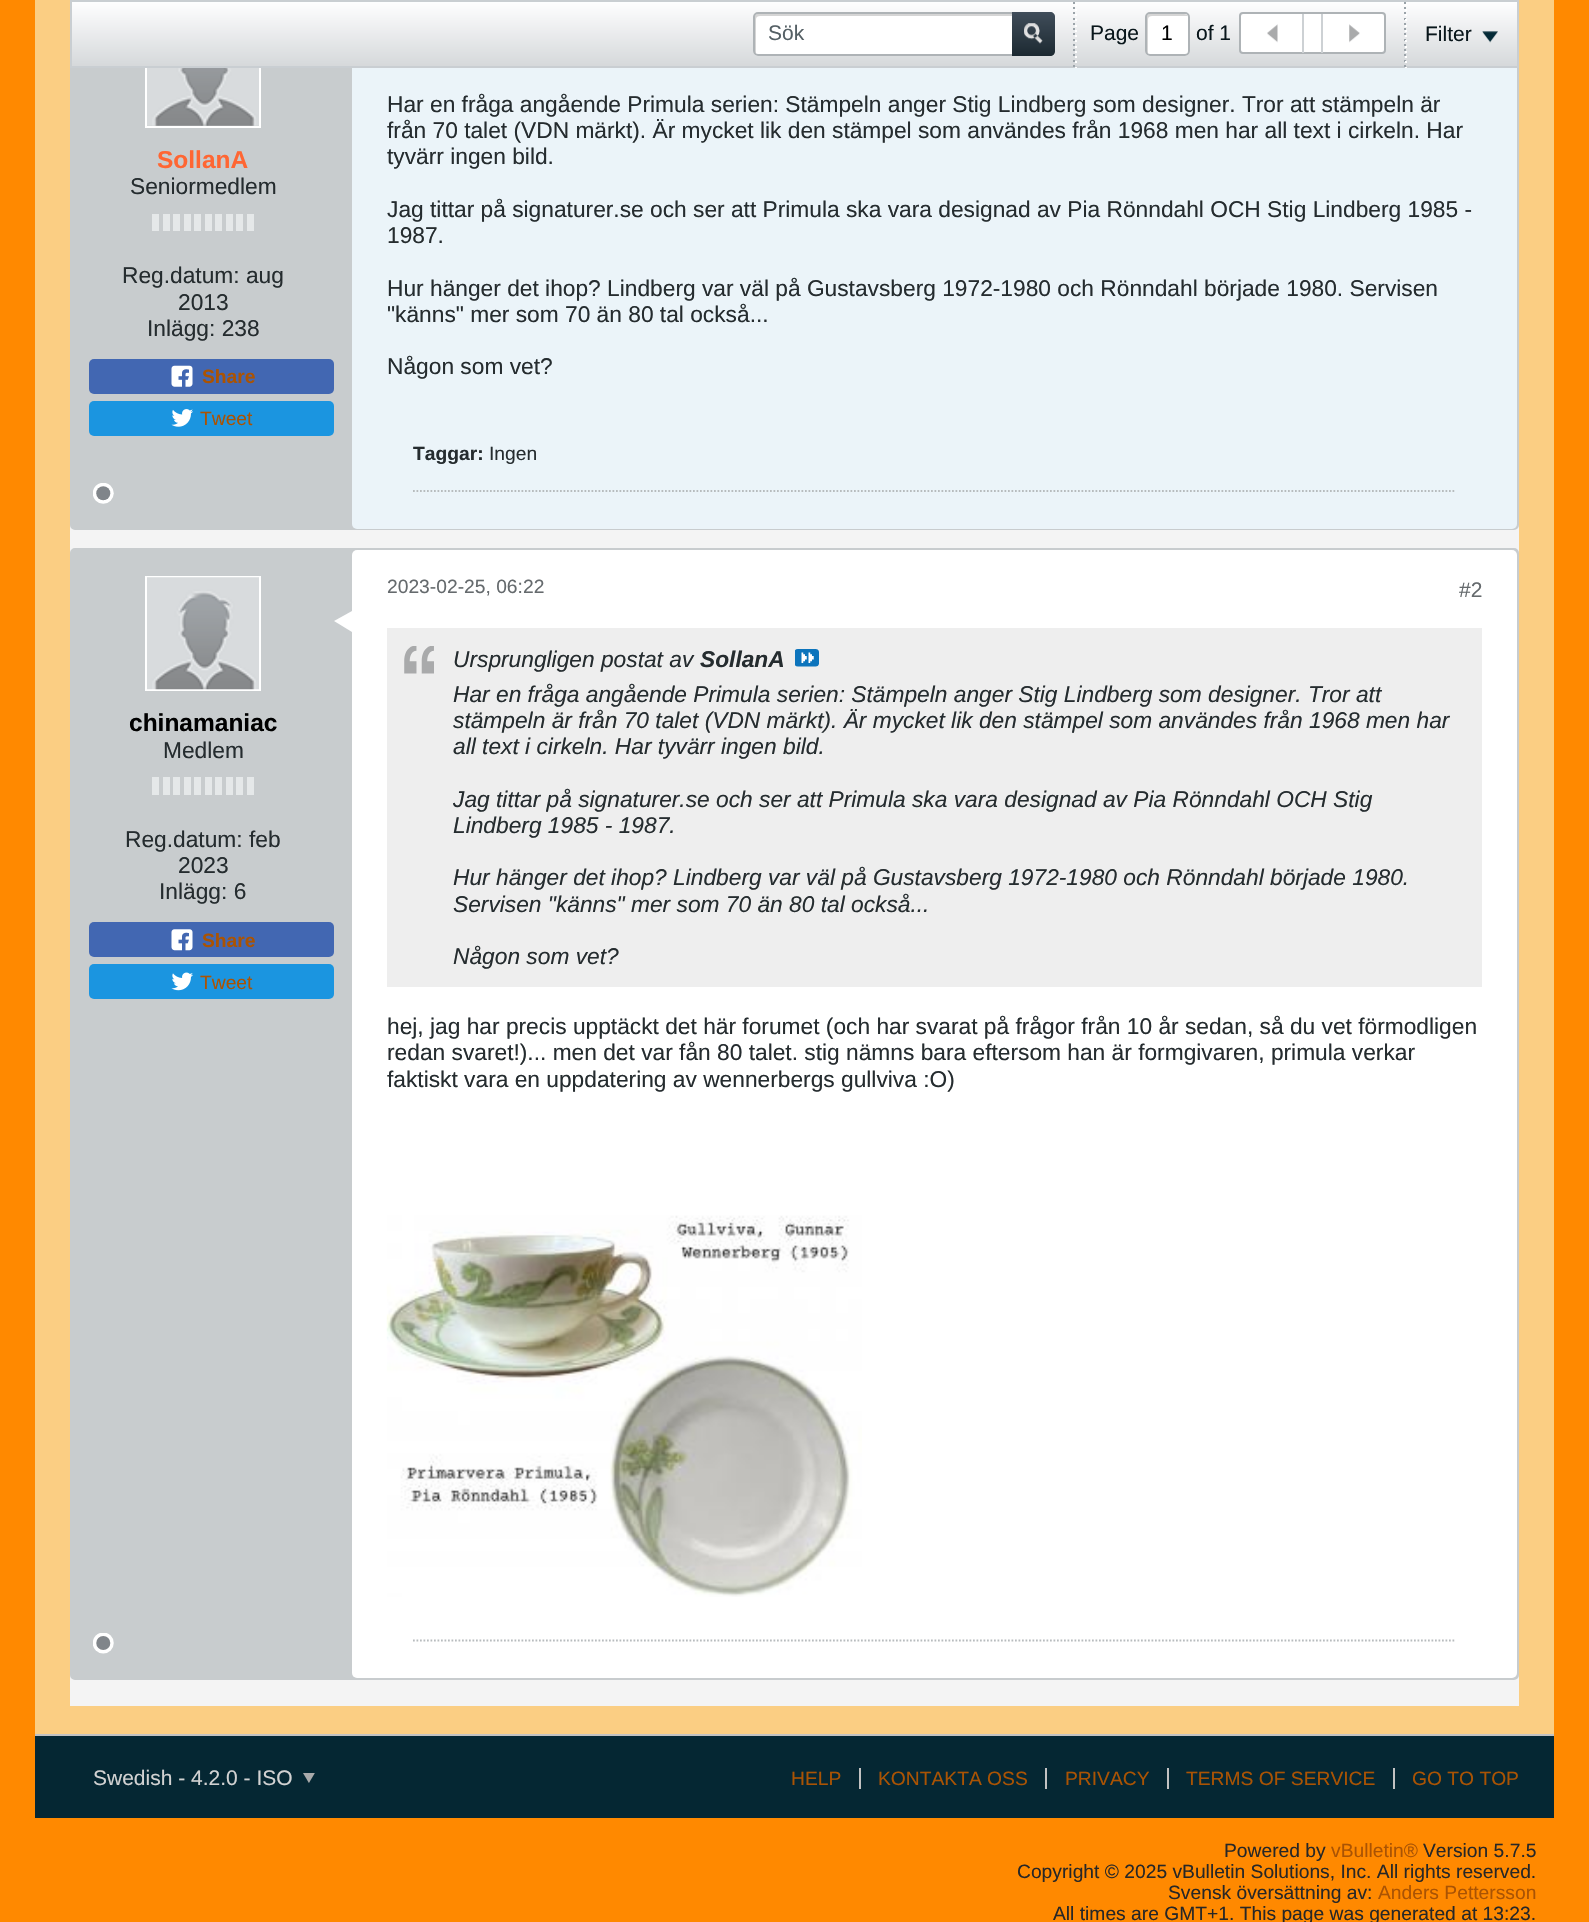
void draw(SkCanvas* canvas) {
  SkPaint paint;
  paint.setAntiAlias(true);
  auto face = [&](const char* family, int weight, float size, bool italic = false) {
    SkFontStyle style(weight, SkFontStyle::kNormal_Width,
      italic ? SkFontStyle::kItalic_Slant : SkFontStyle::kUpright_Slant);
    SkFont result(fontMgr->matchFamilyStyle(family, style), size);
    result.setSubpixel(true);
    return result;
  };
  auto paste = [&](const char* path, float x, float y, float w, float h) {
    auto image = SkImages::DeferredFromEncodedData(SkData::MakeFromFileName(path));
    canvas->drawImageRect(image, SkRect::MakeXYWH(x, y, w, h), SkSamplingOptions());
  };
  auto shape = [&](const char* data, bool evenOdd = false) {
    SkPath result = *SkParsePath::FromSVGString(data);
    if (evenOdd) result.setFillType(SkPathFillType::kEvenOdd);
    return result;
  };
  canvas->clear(0xffff8900);
  paint.setColor(0xfffbce83);
  canvas->drawRect(SkRect::MakeXYWH(35, 0, 1519, 1734), paint);
  paint.setColor(0xfff4f4f4);
  canvas->drawRect(SkRect::MakeXYWH(70, 525, 1449, 1181), paint);
  paint.setColor(0xffc8ccce);
  canvas->drawRoundRect(SkRect::MakeXYWH(71, -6, 1447, 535), 4, 4, paint);
  paint.setStroke(true);
  paint.setStrokeWidth(2);
  canvas->drawRoundRect(SkRect::MakeXYWH(71, -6, 1447, 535), 4, 4, paint);
  paint.setColor(0xffffffff);
  canvas->drawRect(SkRect::MakeXYWH(146, 13, 114, 114), paint);
  paint.setStroke(false);
  paint.setColor(0xffebf4f9);
  canvas->drawRoundRect(SkRect::MakeXYWH(352, -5, 1165, 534), 5, 5, paint);
  {
    const SkColor colors[] = {0xfffefeff, 0xffd5d8da};
    const float stops[] = {0, 1};
    const SkPoint ends[] = {{795, 1.7f}, {795, 67}};
    paint.setShader(SkGradientShader::MakeLinear(ends, colors, stops, 2, SkTileMode::kClamp));
    paint.setAlpha(255);
  }
  canvas->drawRect(SkRect::MakeXYWH(72, 2, 1445, 64), paint);
  paint.setStroke(true);
  paint.setShader(nullptr);
  paint.setColor(0xffc9ced2);
  canvas->drawRect(SkRect::MakeXYWH(71, 1, 1447, 66), paint);
  paint.setStroke(false);
  paint.setColor(0xffffffff);
  canvas->drawRoundRect(SkRect::MakeXYWH(753, 12, 302, 44), 5, 5, paint);
  paint.setColor(0xffd5d5d5);
  canvas->drawPath(shape("M760 16H1054C1053 15 1052 14 1050 14H758C756 14 754 16 754 18V50C754 52 755 53 756 54V52V19C756 17 758 16 760 16Z"), paint);
  paint.setStroke(true);
  paint.setColor(0xffaeb3b6);
  canvas->drawRoundRect(SkRect::MakeXYWH(754, 13, 300, 42), 4, 4, paint);
  paint.setStroke(false);
  {
    const SkColor colors[] = {0xff404d5a, 0xff1c2931};
    const float stops[] = {0, 1};
    const SkPoint ends[] = {{1033, 12}, {1033, 56}};
    paint.setShader(SkGradientShader::MakeLinear(ends, colors, stops, 2, SkTileMode::kClamp));
    paint.setAlpha(255);
  }
  canvas->drawPath(shape("M1012 12H1050C1053 12 1055 14 1055 17V51C1055 54 1053 56 1050 56H1012Z"), paint);
  paste("img/1.png", 1024, 23, 19, 21);
  paint.setShader(nullptr);
  {
    const struct { float x, y, w, h; SkColor color; } items[] = {
      {1073, 2, 2, 2, 0xff9ba3a9},
      {1073, 7, 2, 2, 0xff9ba3a9},
      {1073, 12, 2, 2, 0xff9ba3a9},
      {1073, 18, 2, 2, 0xff9ba3a9},
      {1073, 23, 2, 2, 0xff9ba3a9},
      {1073, 28, 2, 2, 0xff9ba3a9},
      {1073, 33, 2, 2, 0xff9ba3a9},
      {1073, 39, 2, 2, 0xff9ba3a9},
      {1073, 44, 2, 2, 0xff9ba3a9},
      {1073, 49, 2, 2, 0xff9ba3a9},
      {1073, 54, 2, 2, 0xff9ba3a9},
      {1073, 60, 2, 2, 0xff9ba3a9},
      {1073, 65, 2, 2, 0xff9ba3a9},
      {1075, 4, 2, 2, 0xffffffff},
      {1075, 9, 2, 2, 0xffffffff},
      {1075, 14, 2, 2, 0xffffffff},
      {1075, 19, 2, 2, 0xffffffff},
      {1075, 25, 2, 2, 0xffffffff},
      {1075, 30, 2, 2, 0xffffffff},
      {1075, 35, 2, 2, 0xffffffff},
      {1075, 40, 2, 2, 0xffffffff},
      {1075, 46, 2, 2, 0xffffffff},
      {1075, 51, 2, 2, 0xffffffff},
      {1075, 56, 2, 2, 0xffffffff},
      {1075, 61, 2, 2, 0xffffffff},
      {1075, 67, 2, 1, 0xffffffff},
    };
    for (auto [x, y, w, h, color] : items) {
      paint.setColor(color);
      canvas->drawRect(SkRect::MakeXYWH(x, y, w, h), paint);
    }
  }
  canvas->drawRoundRect(SkRect::MakeXYWH(1145, 12, 45, 44), 5, 5, paint);
  paint.setColor(0xffd5d5d5);
  canvas->drawPath(shape("M1152 16H1188C1187 15 1186 14 1184 14H1150C1148 14 1146 16 1146 18V50C1146 52 1147 53 1148 54V52V19C1148 17 1150 16 1152 16Z"), paint);
  paint.setStroke(true);
  paint.setColor(0xffaeb3b6);
  canvas->drawRoundRect(SkRect::MakeXYWH(1146, 13, 43, 42), 4, 4, paint);
  paint.setStroke(false);
  paint.setColor(0xffffffff);
  canvas->drawRoundRect(SkRect::MakeXYWH(1240, 13, 145, 40), 3, 3, paint);
  paint.setStroke(true);
  paint.setColor(0xffaeb3b6);
  canvas->drawRoundRect(SkRect::MakeXYWH(1240, 13, 145, 40), 3, 3, paint);
  paint.setStroke(false);
  paint.setColor(0xffcdd1d4);
  canvas->drawRect(SkRect::MakeXYWH(1302, 14, 2, 39), paint);
  paste("img/2.png", 1267, 24, 11, 19);
  canvas->drawRect(SkRect::MakeXYWH(1321, 14, 2, 39), paint);
  paste("img/3.png", 1349, 24, 11, 19);
  {
    const struct { float x, y, w, h; SkColor color; } items[] = {
      {1404, 2, 2, 2, 0xff9ba3a9},
      {1404, 7, 2, 2, 0xff9ba3a9},
      {1404, 12, 2, 2, 0xff9ba3a9},
      {1404, 18, 2, 2, 0xff9ba3a9},
      {1404, 23, 2, 2, 0xff9ba3a9},
      {1404, 28, 2, 2, 0xff9ba3a9},
      {1404, 33, 2, 2, 0xff9ba3a9},
      {1404, 39, 2, 2, 0xff9ba3a9},
      {1404, 44, 2, 2, 0xff9ba3a9},
      {1404, 49, 2, 2, 0xff9ba3a9},
      {1404, 54, 2, 2, 0xff9ba3a9},
      {1404, 60, 2, 2, 0xff9ba3a9},
      {1404, 65, 2, 2, 0xff9ba3a9},
      {1405, 4, 2, 2, 0xffffffff},
      {1405, 9, 2, 2, 0xffffffff},
      {1405, 14, 2, 2, 0xffffffff},
      {1405, 19, 2, 2, 0xffffffff},
      {1405, 25, 2, 2, 0xffffffff},
      {1405, 30, 2, 2, 0xffffffff},
      {1405, 35, 2, 2, 0xffffffff},
      {1405, 40, 2, 2, 0xffffffff},
      {1405, 46, 2, 2, 0xffffffff},
      {1405, 51, 2, 2, 0xffffffff},
      {1405, 56, 2, 2, 0xffffffff},
      {1405, 61, 2, 2, 0xffffffff},
      {1405, 67, 2, 1, 0xffffffff},
    };
    for (auto [x, y, w, h, color] : items) {
      paint.setColor(color);
      canvas->drawRect(SkRect::MakeXYWH(x, y, w, h), paint);
    }
  }
  paste("img/4.png", 1482, 31, 16, 12);
  paste("img/5.png", 147, 68, 112, 58);
  {
    const struct { float x, y, w, h; SkColor color; } items[] = {
      {152, 214, 7, 17, 0xffe5e8e9},
      {163, 214, 7, 17, 0xffe5e8e9},
      {173, 214, 7, 17, 0xffe5e8e9},
      {184, 214, 7, 17, 0xffe5e8e9},
      {194, 214, 7, 17, 0xffe5e8e9},
      {205, 214, 7, 17, 0xffe5e8e9},
      {215, 214, 7, 17, 0xffe5e8e9},
      {226, 214, 7, 17, 0xffe5e8e9},
      {236, 214, 7, 17, 0xffe5e8e9},
      {247, 214, 7, 17, 0xffe5e8e9},
    };
    for (auto [x, y, w, h, color] : items) {
      paint.setColor(color);
      canvas->drawRect(SkRect::MakeXYWH(x, y, w, h), paint);
    }
  }
  paste("img/6.png", 93, 483, 21, 21);
  paint.setColor(0xff4267b2);
  canvas->drawRoundRect(SkRect::MakeXYWH(89, 359, 245, 35), 5, 5, paint);
  paste("img/7.png", 171, 365, 22, 22);
  paint.setColor(0xff1b95e0);
  canvas->drawRoundRect(SkRect::MakeXYWH(89, 401, 245, 35), 5, 5, paint);
  paste("img/8.png", 171, 409, 22, 18);
  paint.setStroke(true);
  paint.setStrokeWidth(1.8f);
  paint.setColor(0xffb7bcbe);
  paint.setPathEffect(SkDashPathEffect::Make({{1.75f, 1.75f}}, 0));
  canvas->drawPath(shape("M413 491H1456"), paint);
  paint.setPathEffect(nullptr);
  paint.setStroke(false);
  paint.setColor(0xffc8ccce);
  canvas->drawRoundRect(SkRect::MakeXYWH(71, 549, 1447, 1130), 4, 4, paint);
  paint.setStroke(true);
  paint.setStrokeWidth(2);
  canvas->drawRoundRect(SkRect::MakeXYWH(71, 549, 1447, 1130), 4, 4, paint);
  paint.setColor(0xffffffff);
  canvas->drawRect(SkRect::MakeXYWH(146, 577, 114, 113), paint);
  paste("img/9.png", 147, 577, 112, 113);
  paint.setStroke(false);
  {
    const struct { float x, y, w, h; SkColor color; } items[] = {
      {152, 777, 7, 18, 0xffe5e8e9},
      {163, 777, 7, 18, 0xffe5e8e9},
      {173, 777, 7, 18, 0xffe5e8e9},
      {184, 777, 7, 18, 0xffe5e8e9},
      {194, 777, 7, 18, 0xffe5e8e9},
      {205, 777, 7, 18, 0xffe5e8e9},
      {215, 777, 7, 18, 0xffe5e8e9},
      {226, 777, 7, 18, 0xffe5e8e9},
      {236, 777, 7, 18, 0xffe5e8e9},
      {247, 777, 7, 18, 0xffe5e8e9},
    };
    for (auto [x, y, w, h, color] : items) {
      paint.setColor(color);
      canvas->drawRect(SkRect::MakeXYWH(x, y, w, h), paint);
    }
  }
  paste("img/10.png", 93, 1633, 21, 21);
  paint.setColor(0xff4267b2);
  canvas->drawRoundRect(SkRect::MakeXYWH(89, 922, 245, 35), 5, 5, paint);
  paste("img/11.png", 171, 929, 22, 22);
  paint.setColor(0xff1b95e0);
  canvas->drawRoundRect(SkRect::MakeXYWH(89, 964, 245, 35), 5, 5, paint);
  paste("img/12.png", 171, 972, 22, 19);
  paint.setColor(0xffffffff);
  canvas->drawRoundRect(SkRect::MakeXYWH(352, 550, 1165, 1128), 5, 5, paint);
  canvas->drawPath(shape("M352 611V632L334 621Z"), paint);
  paint.setColor(0xffeeeeee);
  canvas->drawRect(SkRect::MakeXYWH(387, 628, 1095, 359), paint);
  paste("img/13.png", 404, 646, 30, 28);
  paste("img/14.png", 795, 649, 24, 18);
  paste("img/15.png", 386, 1215, 476, 382);
  paint.setStroke(true);
  paint.setStrokeWidth(1.8f);
  paint.setColor(0xffb7bcbe);
  paint.setPathEffect(SkDashPathEffect::Make({{1.75f, 1.75f}}, 0));
  canvas->drawPath(shape("M413 1640.5H1456"), paint);
  paint.setPathEffect(nullptr);
  paint.setStroke(false);
  paint.setColor(0xff052733);
  canvas->drawRect(SkRect::MakeXYWH(35, 1736, 1519, 82), paint);
  paint.setColor(0xffc2c2c2);
  canvas->drawRect(SkRect::MakeXYWH(35, 1734, 1519, 2), paint);
  paste("img/16.png", 303, 1773, 12, 10);
  {
    const struct { float x, y, w, h; SkColor color; } items[] = {
      {859, 1768, 2, 21, 0xffc2c2c2},
      {1045, 1768, 2, 21, 0xffc2c2c2},
      {1167, 1768, 2, 21, 0xffc2c2c2},
      {1393, 1768, 2, 21, 0xffc2c2c2},
    };
    for (auto [x, y, w, h, color] : items) {
      paint.setColor(color);
      canvas->drawRect(SkRect::MakeXYWH(x, y, w, h), paint);
    }
  }
  auto f0 = face("Liberation Sans", 400, 21);
  paint.setColor(0xff556065);
  canvas->drawString("Sök", 768, 40, f0, paint);
  paint.setColor(0xff09161b);
  canvas->drawString("Page", 1090, 40, f0, paint);
  paint.setColor(0xff000000);
  canvas->drawString("1", 1161, 40, f0, paint);
  paint.setColor(0xff09161b);
  canvas->drawString("of 1", 1196, 40, f0, paint);
  canvas->drawString("Filter", 1425, 41, f0, paint);
  auto f1 = face("Liberation Sans", 700, 24.5f);
  paint.setColor(0xffff6633);
  canvas->drawString("SollanA", 157, 168, f1, paint);
  auto f2 = face("Liberation Sans", 400, 22.75f);
  paint.setColor(0xff252c2f);
  {
    const struct { const char* s; float x, y; } items[] = {
      {"Seniormedlem", 130, 194},
      {"Reg.datum: aug", 122, 283},
      {"2013", 178, 310},
      {"Inlägg: 238", 147, 336},
    };
    for (auto [s, x, y] : items) {
      canvas->drawString(s, x, y, f2, paint);
    }
  }
  auto f3 = face("Liberation Sans", 700, 19.25f);
  paint.setColor(0xffaa5303);
  canvas->drawString("Share", 202, 383, f3, paint);
  auto f4 = face("Liberation Sans", 400, 19.25f);
  canvas->drawString("Tweet", 200, 425, f4, paint);
  paint.setColor(0xff252c2f);
  {
    const struct { const char* s; float x, y; } items[] = {
      {"Har en fråga angående Primula serien: Stämpeln anger Stig Lindberg som designer. Tror att stämpeln är", 387, 112},
      {"från 70 talet (VDN märkt). Är mycket lik den stämpel som användes från 1968 men har all text i cirkeln. Har", 387, 138},
      {"tyvärr ingen bild.", 387, 164},
      {"Jag tittar på signaturer.se och ser att Primula ska vara designad av Pia Rönndahl OCH Stig Lindberg 1985 -", 387, 217},
      {"1987.", 387, 243},
      {"Hur hänger det ihop? Lindberg var väl på Gustavsberg 1972-1980 och Rönndahl började 1980. Servisen", 387, 296},
      {"\"känns\" mer som 70 än 80 tal också...", 387, 322},
      {"Någon som vet?", 387, 374},
    };
    for (auto [s, x, y] : items) {
      canvas->drawString(s, x, y, f2, paint);
    }
  }
  canvas->drawString("Taggar:", 413, 460, f3, paint);
  canvas->drawString("Ingen", 489, 460, f4, paint);
  paint.setColor(0xff000000);
  canvas->drawString("chinamaniac", 129, 731, f1, paint);
  paint.setColor(0xff252c2f);
  {
    const struct { const char* s; float x, y; } items[] = {
      {"Medlem", 163, 758},
      {"Reg.datum: feb", 125, 847},
      {"2023", 178, 873},
      {"Inlägg: 6", 159, 899},
    };
    for (auto [s, x, y] : items) {
      canvas->drawString(s, x, y, f2, paint);
    }
  }
  paint.setColor(0xffaa5303);
  canvas->drawString("Share", 202, 947, f3, paint);
  canvas->drawString("Tweet", 200, 989, f4, paint);
  paint.setColor(0xff656a6d);
  canvas->drawString("2023-02-25, 06:22", 387, 593, f4, paint);
  canvas->drawString("#2", 1459, 597, f0, paint);
  auto f5 = face("Liberation Sans", 400, 22.75f, true);
  paint.setColor(0xff252c2f);
  canvas->drawString("Ursprungligen postat av", 453, 667, f5, paint);
  auto f6 = face("Liberation Sans", 700, 22.75f, true);
  canvas->drawString("SollanA", 700, 667, f6, paint);
  {
    const struct { const char* s; float x, y; } items[] = {
      {"Har en fråga angående Primula serien: Stämpeln anger Stig Lindberg som designer. Tror att", 453, 702},
      {"stämpeln är från 70 talet (VDN märkt). Är mycket lik den stämpel som användes från 1968 men har", 453, 728},
      {"all text i cirkeln. Har tyvärr ingen bild.", 453, 754},
      {"Jag tittar på signaturer.se och ser att Primula ska vara designad av Pia Rönndahl OCH Stig", 453, 807},
      {"Lindberg 1985 - 1987.", 453, 833},
      {"Hur hänger det ihop? Lindberg var väl på Gustavsberg 1972-1980 och Rönndahl började 1980.", 453, 885},
      {"Servisen \"känns\" mer som 70 än 80 tal också...", 453, 912},
      {"Någon som vet?", 453, 964},
    };
    for (auto [s, x, y] : items) {
      canvas->drawString(s, x, y, f5, paint);
    }
  }
  {
    const struct { const char* s; float x, y; } items[] = {
      {"hej, jag har precis upptäckt det här forumet (och har svarat på frågor från 10 år sedan, så du vet förmodligen", 387, 1034},
      {"redan svaret!)... men det var fån 80 talet. stig nämns bara eftersom han är formgivaren, primula verkar", 387, 1060},
      {"faktiskt vara en uppdatering av wennerbergs gullviva :O)", 387, 1087},
    };
    for (auto [s, x, y] : items) {
      canvas->drawString(s, x, y, f2, paint);
    }
  }
  paint.setColor(0xffd2d2d2);
  canvas->drawString("Swedish - 4.2.0 - ISO", 93, 1785, f0, paint);
  paint.setColor(0xffaa5303);
  {
    const struct { const char* s; float x, y; } items[] = {
      {"HELP", 791, 1785},
      {"KONTAKTA OSS", 878, 1785},
      {"PRIVACY", 1065, 1785},
      {"TERMS OF SERVICE", 1186, 1785},
      {"GO TO TOP", 1412, 1785},
    };
    for (auto [s, x, y] : items) {
      canvas->drawString(s, x, y, f4, paint);
    }
  }
  paint.setColor(0xff272727);
  canvas->drawString("Powered by", 1224, 1857, f4, paint);
  paint.setColor(0xffaa5303);
  canvas->drawString("vBulletin®", 1331, 1857, f4, paint);
  paint.setColor(0xff272727);
  {
    const struct { const char* s; float x, y; } items[] = {
      {"Version 5.7.5", 1423, 1857},
      {"Copyright © 2025 vBulletin Solutions, Inc. All rights reserved.", 1017, 1878},
      {"Svensk översättning av:", 1168, 1899},
    };
    for (auto [s, x, y] : items) {
      canvas->drawString(s, x, y, f4, paint);
    }
  }
  paint.setColor(0xffaa5303);
  canvas->drawString("Anders Pettersson", 1378, 1899, f4, paint);
  paint.setColor(0xff272727);
  canvas->drawString("All times are GMT+1. This page was generated at 13:23.", 1053, 1920, f4, paint);
}
